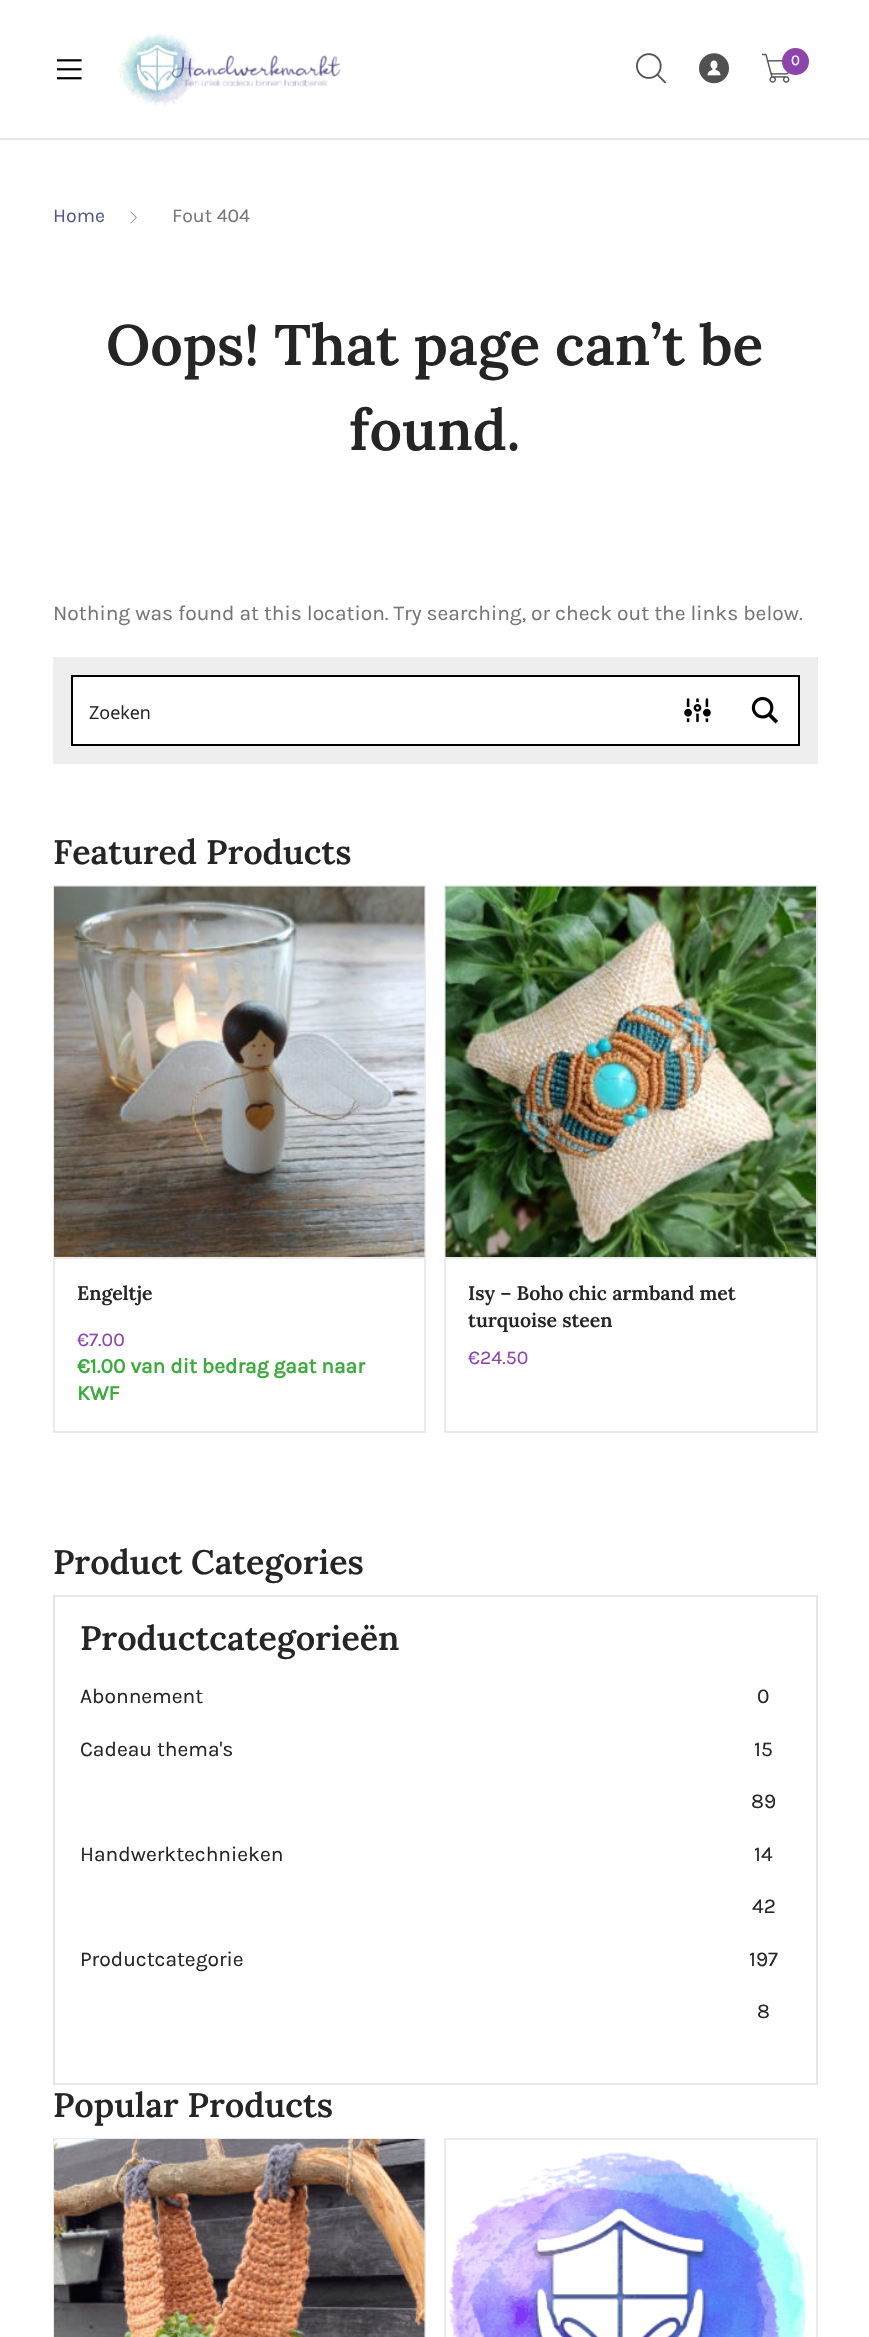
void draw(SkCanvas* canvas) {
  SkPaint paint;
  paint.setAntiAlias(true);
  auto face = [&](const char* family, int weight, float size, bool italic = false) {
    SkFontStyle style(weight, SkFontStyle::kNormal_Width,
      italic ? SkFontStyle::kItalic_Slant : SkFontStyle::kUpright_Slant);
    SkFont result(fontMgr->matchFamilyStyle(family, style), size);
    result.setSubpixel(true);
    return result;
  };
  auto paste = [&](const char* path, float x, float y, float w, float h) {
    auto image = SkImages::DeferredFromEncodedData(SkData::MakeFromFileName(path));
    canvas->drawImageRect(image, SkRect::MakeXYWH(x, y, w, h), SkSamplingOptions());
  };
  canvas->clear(0xffffffff);
  paint.setColor(0xffe6e6e6);
  canvas->drawRect(SkRect::MakeXYWH(0, 138, 869, 2), paint);
  paste("img/1.png", 56, 59, 26, 21);
  paste("img/2.png", 116, 32, 225, 74);
  paste("img/3.png", 636, 53, 30, 31);
  paste("img/4.png", 699, 53, 30, 31);
  paste("img/5.png", 762, 53, 28, 30);
  paint.setColor(0xff8e44ad);
  canvas->drawCircle(795.5f, 61.5f, 13.5f, paint);
  paste("img/6.png", 130, 211, 7, 13);
  paint.setColor(0xffeeeeee);
  canvas->drawRect(SkRect::MakeXYWH(53, 657, 765, 107), paint);
  paint.setColor(0xffffffff);
  canvas->drawRect(SkRect::MakeXYWH(72, 676, 727, 69), paint);
  paint.setStroke(true);
  paint.setStrokeWidth(2);
  paint.setColor(0xff000000);
  canvas->drawRect(SkRect::MakeXYWH(72, 676, 727, 69), paint);
  paste("img/7.png", 684, 698, 27, 25);
  paste("img/8.png", 751, 697, 28, 27);
  paint.setColor(0xffebebeb);
  canvas->drawRect(SkRect::MakeXYWH(54, 886, 371, 546), paint);
  paint.setStroke(false);
  canvas->drawRect(SkRect::MakeXYWH(54, 1257, 371, 2), paint);
  paste("img/9.png", 54, 886, 371, 371);
  paint.setStroke(true);
  canvas->drawRect(SkRect::MakeXYWH(445, 886, 372, 546), paint);
  paint.setStroke(false);
  canvas->drawRect(SkRect::MakeXYWH(446, 1257, 370, 2), paint);
  paste("img/10.png", 445, 886, 371, 371);
  paint.setStroke(true);
  paint.setColor(0xffe6e6e6);
  canvas->drawRect(SkRect::MakeXYWH(54, 1596, 763, 488), paint);
  paint.setColor(0xffebebeb);
  canvas->drawRect(SkRect::MakeXYWH(54, 2139, 371, 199), paint);
  paste("img/11.png", 54, 2139, 371, 198);
  canvas->drawRect(SkRect::MakeXYWH(445, 2139, 372, 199), paint);
  paste("img/12.png", 449, 2152, 358, 185);
  auto f0 = face("Karla", 400, 15);
  paint.setStroke(false);
  paint.setColor(0xffffffff);
  canvas->drawString("0", 791, 65, f0, paint);
  auto f1 = face("Karla", 400, 19.5f);
  paint.setColor(0xff525792);
  canvas->drawString("Home", 53, 222, f1, paint);
  paint.setColor(0xff757575);
  canvas->drawString("Fout 404", 172, 222, f1, paint);
  auto f2 = face("Lora", 600, 57);
  paint.setColor(0xff252525);
  canvas->drawString("Oops! That page can’t be", 106, 365, f2, paint);
  canvas->drawString("found.", 349, 450, f2, paint);
  auto f3 = face("Karla", 400, 21);
  paint.setColor(0xff757575);
  canvas->drawString("Nothing was found at this location. Try searching, or check out the links below.", 53, 620, f3, paint);
  auto f4 = face("Open Sans", 400, 18);
  paint.setColor(0xff252525);
  canvas->drawString("Zoeken", 89, 719, f4, paint);
  auto f5 = face("Lora", 600, 34);
  canvas->drawString("Featured Products", 53, 864, f5, paint);
  auto f6 = face("Lora", 600, 19.5f);
  canvas->drawString("Engeltje", 77, 1300, f6, paint);
  paint.setColor(0xff8e44ad);
  canvas->drawString("€7.00", 77, 1346, f1, paint);
  auto f7 = face("Karla", 700, 21);
  paint.setColor(0xff3cab3c);
  canvas->drawString("€1.00 van dit bedrag gaat naar", 77, 1373, f7, paint);
  canvas->drawString("KWF", 77, 1400, f7, paint);
  paint.setColor(0xff252525);
  canvas->drawString("Isy – Boho chic armband met", 468, 1300, f6, paint);
  canvas->drawString("turquoise steen", 468, 1327, f6, paint);
  paint.setColor(0xff8e44ad);
  canvas->drawString("€24.50", 468, 1364, f1, paint);
  paint.setColor(0xff252525);
  canvas->drawString("Product Categories", 53, 1574, f5, paint);
  canvas->drawString("Productcategorieën", 80, 1650, f5, paint);
  {
    const struct { const char* s; float x, y; } items[] = {
      {"Abonnement", 80, 1703},
      {"0", 757, 1703},
      {"Cadeau thema's", 80, 1756},
      {"15", 754, 1756},
      {"89", 751, 1808},
      {"Handwerktechnieken", 80, 1861},
      {"14", 754, 1861},
      {"42", 752, 1913},
      {"Productcategorie", 80, 1966},
      {"197", 749, 1966},
      {"8", 757, 2018},
    };
    for (auto [s, x, y] : items) {
      canvas->drawString(s, x, y, f3, paint);
    }
  }
  canvas->drawString("Popular Products", 53, 2117, f5, paint);
}
